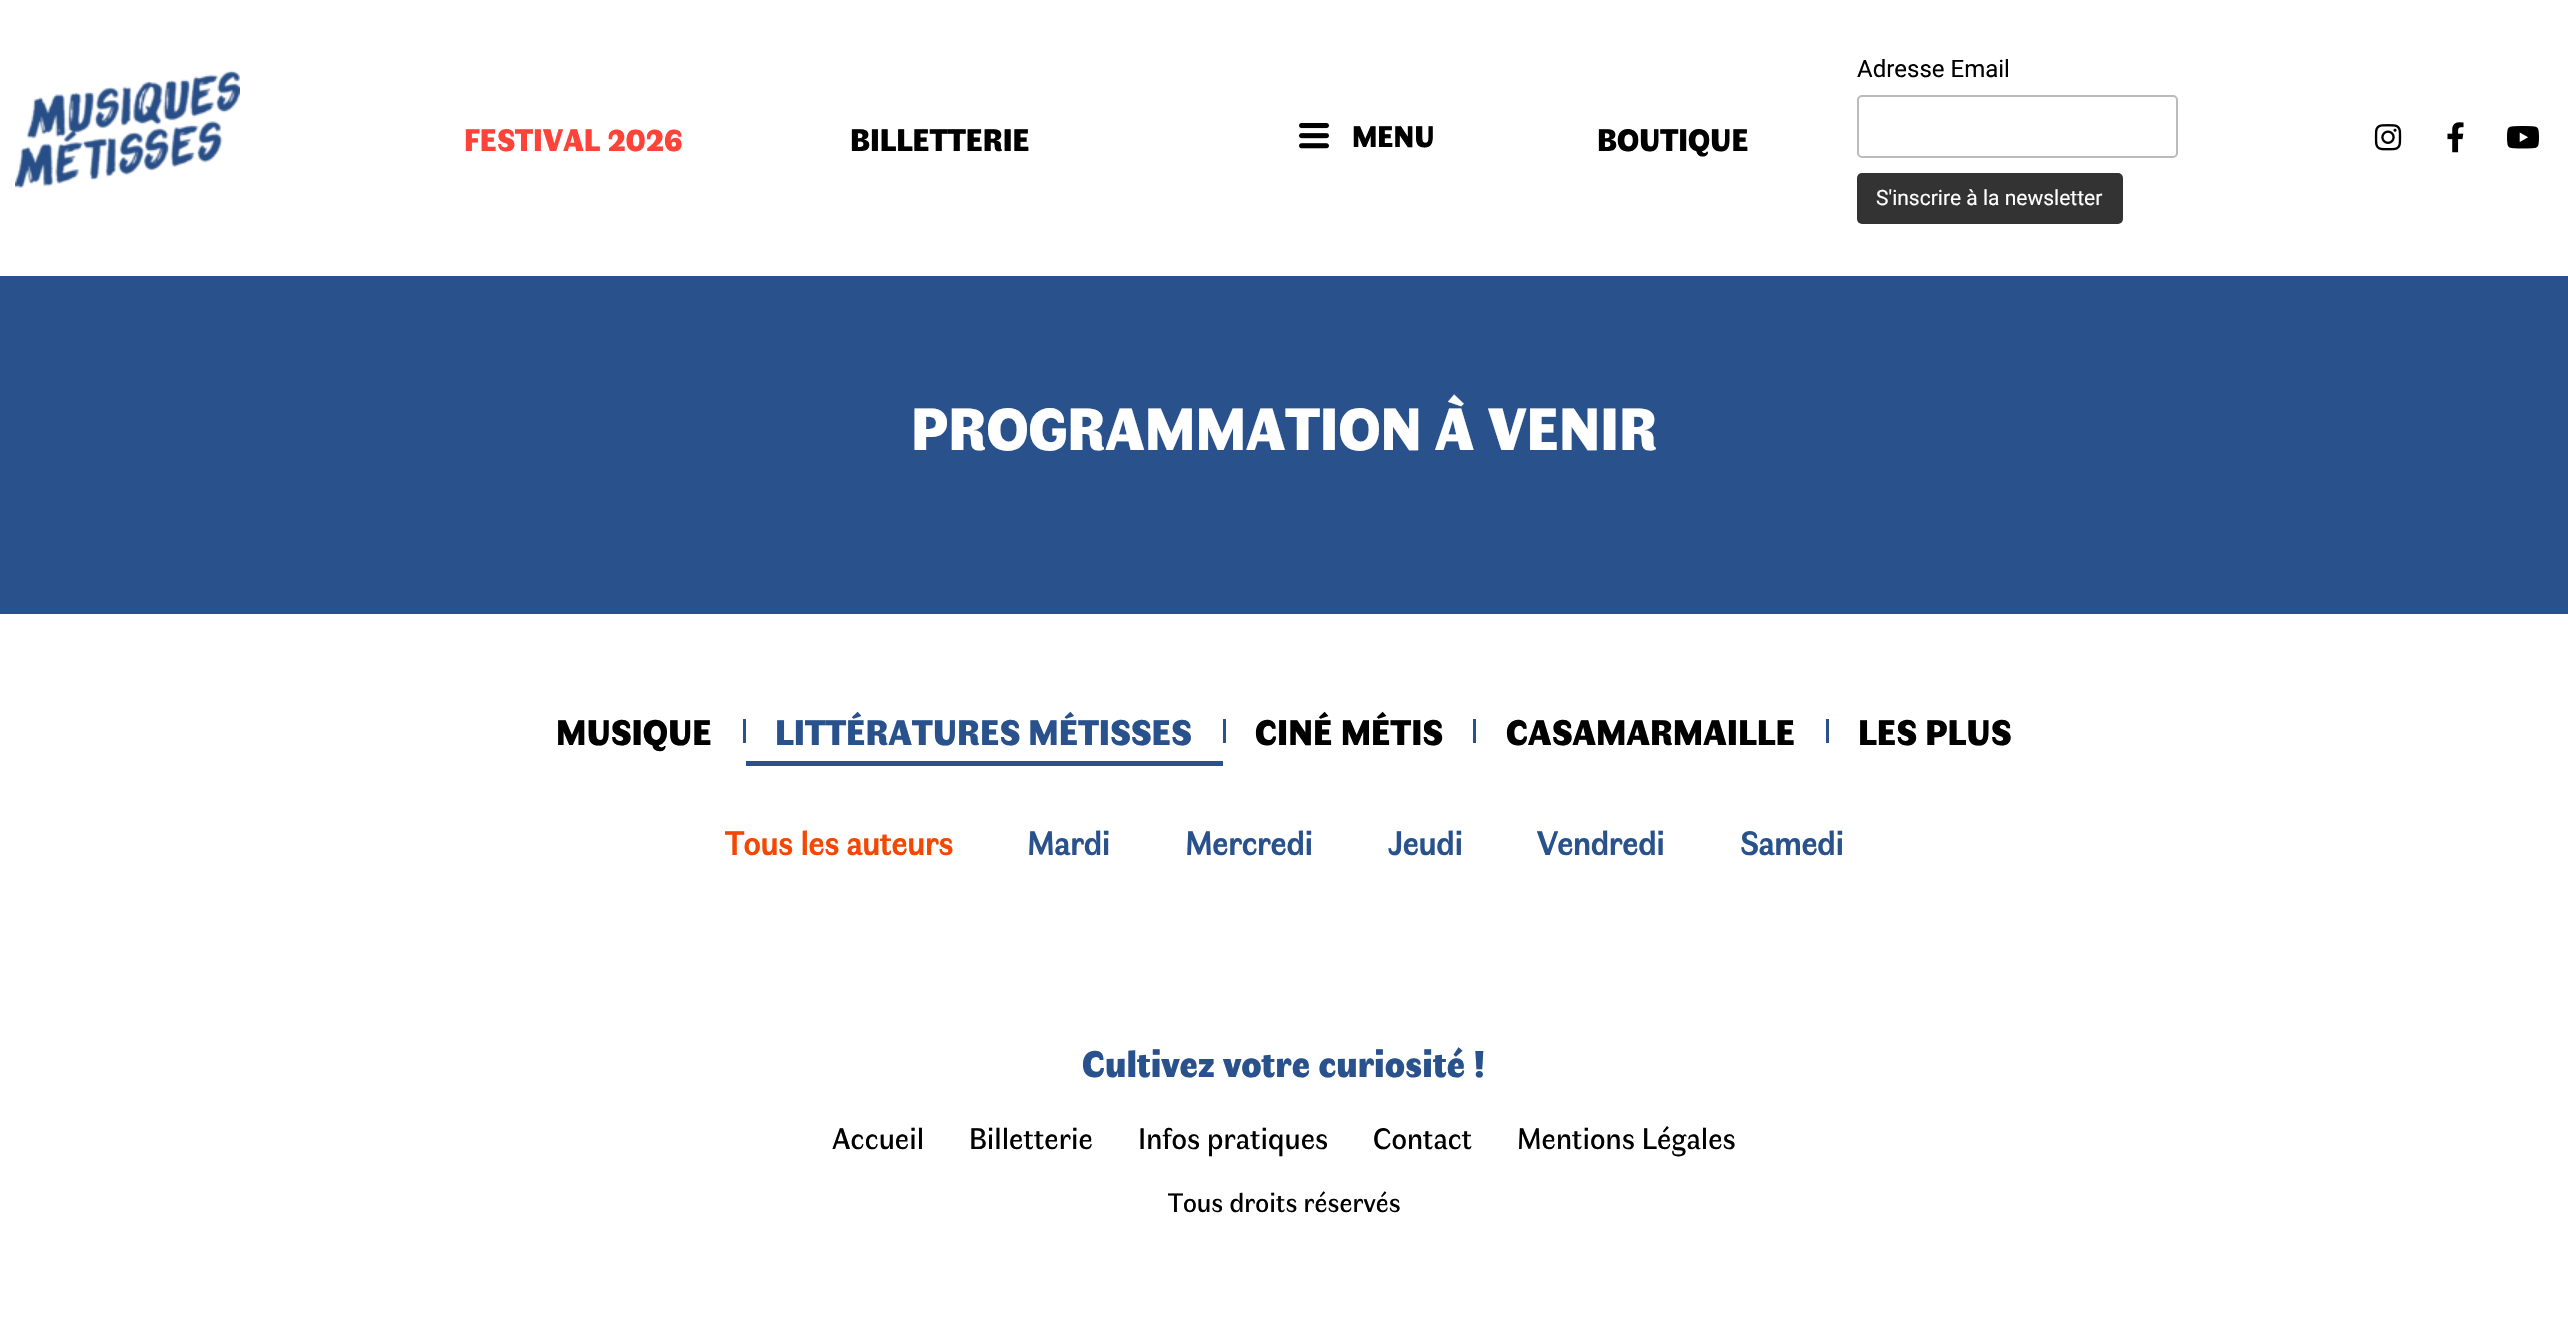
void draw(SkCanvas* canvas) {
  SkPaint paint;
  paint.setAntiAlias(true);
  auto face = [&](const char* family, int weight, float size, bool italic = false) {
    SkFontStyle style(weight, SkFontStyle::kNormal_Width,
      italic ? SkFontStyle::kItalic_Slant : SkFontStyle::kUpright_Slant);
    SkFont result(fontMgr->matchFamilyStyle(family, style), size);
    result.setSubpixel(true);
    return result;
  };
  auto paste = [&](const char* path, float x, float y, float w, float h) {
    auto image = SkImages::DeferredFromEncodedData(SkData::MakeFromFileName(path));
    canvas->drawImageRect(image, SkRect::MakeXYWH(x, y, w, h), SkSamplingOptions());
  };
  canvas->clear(0xffffffff);
  paste("img/1.png", 15, 70, 225, 118);
  paste("img/2.png", 1299, 123, 30, 26);
  paint.setStroke(true);
  paint.setStrokeWidth(2);
  paint.setColor(0xffbbbbbb);
  canvas->drawRoundRect(SkRect::MakeXYWH(1858, 96, 319, 61), 4, 4, paint);
  paint.setStroke(false);
  paint.setColor(0xff333333);
  canvas->drawRoundRect(SkRect::MakeXYWH(1857, 173, 266, 51), 5, 5, paint);
  paste("img/3.png", 2374, 124, 28, 27);
  paste("img/4.png", 2447, 122, 17, 31);
  paste("img/5.png", 2507, 126, 32, 23);
  {
    const struct { float x, y, w, h; SkColor color; } items[] = {
      {0, 276, 2568, 338, 0xff29518c},
      {743, 719, 3, 24, 0xff29518c},
      {746, 761, 477, 5, 0xff29518c},
      {1223, 719, 3, 24, 0xff29518c},
      {1473, 719, 3, 24, 0xff29518c},
      {1826, 719, 3, 24, 0xff29518c},
    };
    for (auto [x, y, w, h, color] : items) {
      paint.setColor(color);
      canvas->drawRect(SkRect::MakeXYWH(x, y, w, h), paint);
    }
  }
  auto f0 = face("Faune", 900, 31.5f);
  paint.setColor(0xffff4339);
  canvas->drawString("FESTIVAL 2026", 464, 151, f0, paint);
  paint.setColor(0xff000000);
  canvas->drawString("BILLETTERIE", 850, 151, f0, paint);
  auto f1 = face("Faune", 900, 30);
  canvas->drawString("MENU", 1352, 147, f1, paint);
  canvas->drawString("BOUTIQUE", 1597, 151, f0, paint);
  auto f2 = face("Roboto", 400, 24);
  canvas->drawString("Adresse Email", 1857, 77, f2, paint);
  auto f3 = face("Roboto", 400, 21);
  paint.setColor(0xffffffff);
  canvas->drawString("S'inscrire à la newsletter", 1876, 205, f3, paint);
  auto f4 = face("Faune", 900, 60);
  canvas->drawString("PROGRAMMATION À VENIR", 911, 450, f4, paint);
  auto f5 = face("Faune", 900, 36);
  paint.setColor(0xff000000);
  canvas->drawString("MUSIQUE", 556, 745, f5, paint);
  paint.setColor(0xff29518c);
  canvas->drawString("LITTÉRATURES MÉTISSES", 775, 745, f5, paint);
  paint.setColor(0xff000000);
  {
    const struct { const char* s; float x, y; } items[] = {
      {"CINÉ MÉTIS", 1255, 745},
      {"CASAMARMAILLE", 1506, 745},
      {"LES PLUS", 1858, 745},
    };
    for (auto [s, x, y] : items) {
      canvas->drawString(s, x, y, f5, paint);
    }
  }
  auto f6 = face("Faune", 700, 33);
  paint.setColor(0xfff44701);
  canvas->drawString("Tous les auteurs", 725, 855, f6, paint);
  paint.setColor(0xff29518c);
  {
    const struct { const char* s; float x, y; } items[] = {
      {"Mardi", 1027, 855},
      {"Mercredi", 1185, 855},
      {"Jeudi", 1388, 855},
      {"Vendredi", 1537, 855},
      {"Samedi", 1740, 855},
    };
    for (auto [s, x, y] : items) {
      canvas->drawString(s, x, y, f6, paint);
    }
  }
  auto f7 = face("Faune", 900, 37.5f);
  canvas->drawString("Cultivez votre curiosité !", 1082, 1077, f7, paint);
  auto f8 = face("Faune", 400, 30);
  paint.setColor(0xff000000);
  {
    const struct { const char* s; float x, y; } items[] = {
      {"Accueil", 832, 1149},
      {"Billetterie", 969, 1149},
      {"Infos pratiques", 1138, 1149},
      {"Contact", 1373, 1149},
      {"Mentions Légales", 1517, 1149},
    };
    for (auto [s, x, y] : items) {
      canvas->drawString(s, x, y, f8, paint);
    }
  }
  auto f9 = face("Faune", 400, 27);
  canvas->drawString("Tous droits réservés", 1168, 1212, f9, paint);
}
